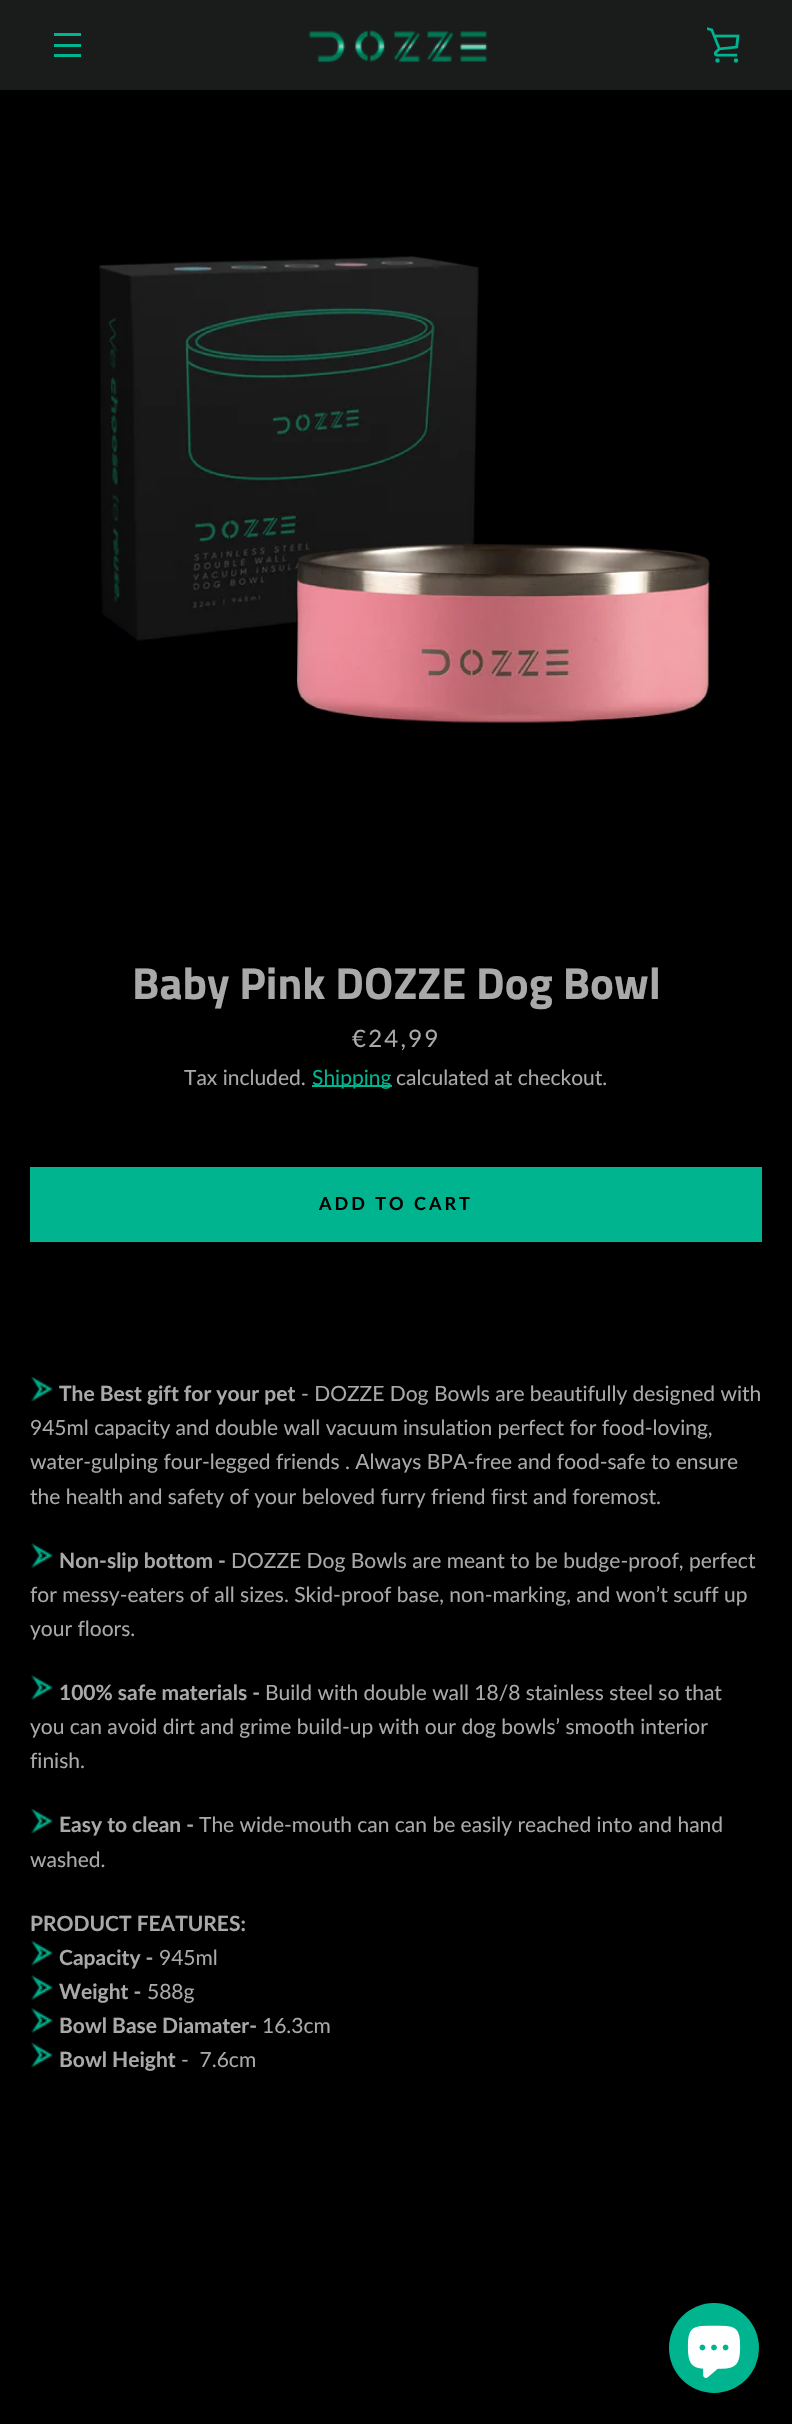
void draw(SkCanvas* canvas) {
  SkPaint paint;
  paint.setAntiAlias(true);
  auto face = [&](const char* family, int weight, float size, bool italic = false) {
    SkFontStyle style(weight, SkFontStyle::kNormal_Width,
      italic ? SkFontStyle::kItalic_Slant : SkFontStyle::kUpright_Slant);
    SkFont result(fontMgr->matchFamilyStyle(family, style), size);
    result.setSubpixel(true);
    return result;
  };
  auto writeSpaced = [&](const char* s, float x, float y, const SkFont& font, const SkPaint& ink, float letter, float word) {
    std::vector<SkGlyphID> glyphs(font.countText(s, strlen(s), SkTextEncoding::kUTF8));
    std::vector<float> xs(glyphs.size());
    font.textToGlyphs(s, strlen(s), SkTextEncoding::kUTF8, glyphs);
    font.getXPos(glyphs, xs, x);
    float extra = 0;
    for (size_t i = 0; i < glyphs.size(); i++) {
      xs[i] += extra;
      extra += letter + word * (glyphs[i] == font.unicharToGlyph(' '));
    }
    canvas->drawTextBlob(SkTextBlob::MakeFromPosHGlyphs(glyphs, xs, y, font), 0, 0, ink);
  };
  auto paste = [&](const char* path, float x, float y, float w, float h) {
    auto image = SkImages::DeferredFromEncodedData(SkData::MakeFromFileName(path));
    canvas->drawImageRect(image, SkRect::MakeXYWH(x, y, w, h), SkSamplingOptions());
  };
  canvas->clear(0xff000000);
  {
    const struct { float x, y, w, h; SkColor color; } items[] = {
      {0, 0, 792, 90, 0xff191c1b},
      {54, 33, 27, 3, 0xff00b490},
      {54, 44, 27, 3, 0xff00b490},
      {54, 54, 27, 3, 0xff00b490},
    };
    for (auto [x, y, w, h, color] : items) {
      paint.setColor(color);
      canvas->drawRect(SkRect::MakeXYWH(x, y, w, h), paint);
    }
  }
  paste("img/1.png", 308, 30, 180, 33);
  paste("img/2.png", 707, 27, 33, 36);
  paste("img/3.png", 99, 256, 611, 468);
  canvas->drawRect(SkRect::MakeXYWH(312, 1085, 80, 2), paint);
  canvas->drawRect(SkRect::MakeXYWH(30, 1167, 732, 75), paint);
  paste("img/4.png", 31, 1377, 22, 24);
  paste("img/5.png", 31, 1543, 22, 25);
  paste("img/5.png", 31, 1675, 22, 25);
  paste("img/4.png", 31, 1809, 22, 24);
  paste("img/4.png", 31, 1941, 22, 24);
  paste("img/5.png", 31, 1975, 22, 25);
  paste("img/5.png", 31, 2008, 22, 25);
  paste("img/4.png", 31, 2043, 22, 24);
  canvas->drawCircle(714, 2348, 45, paint);
  paste("img/6.png", 687, 2325, 54, 53);
  auto f0 = face("Titillium Web", 700, 45);
  paint.setColor(0xffa9a9a9);
  canvas->drawString("Baby Pink DOZZE Dog Bowl", 132, 999, f0, paint);
  auto f1 = face("Lato", 400, 24);
  writeSpaced("€24,99", 352, 1047, f1, paint, 2.25f, 0);
  auto f2 = face("Lato", 400, 21);
  canvas->drawString("Tax included.", 184, 1085, f2, paint);
  paint.setColor(0xff00b490);
  canvas->drawString("Shipping", 312, 1085, f2, paint);
  paint.setColor(0xffa9a9a9);
  canvas->drawString("calculated at checkout.", 396, 1085, f2, paint);
  auto f3 = face("Lato", 700, 18);
  paint.setColor(0xff000000);
  writeSpaced("ADD TO CART", 319, 1210, f3, paint, 3, 0);
  auto f4 = face("Lato", 700, 21);
  paint.setColor(0xffa9a9a9);
  canvas->drawString("The Best gift for your pet", 59, 1401, f4, paint);
  {
    const struct { const char* s; float x, y; } items[] = {
      {"- DOZZE Dog Bowls are beautifully designed with", 301, 1401},
      {"945ml capacity and double wall vacuum insulation perfect for food-loving,", 30, 1435},
      {"water-gulping four-legged friends . Always BPA-free and food-safe to ensure", 30, 1469},
      {"the health and safety of your beloved furry friend first and foremost.", 30, 1504},
    };
    for (auto [s, x, y] : items) {
      canvas->drawString(s, x, y, f2, paint);
    }
  }
  canvas->drawString("Non-slip bottom -", 59, 1568, f4, paint);
  {
    const struct { const char* s; float x, y; } items[] = {
      {"DOZZE Dog Bowls are meant to be budge-proof, perfect", 231, 1568},
      {"for messy-eaters of all sizes. Skid-proof base, non-marking, and won’t scuff up", 30, 1602},
      {"your floors.", 30, 1636},
    };
    for (auto [s, x, y] : items) {
      canvas->drawString(s, x, y, f2, paint);
    }
  }
  canvas->drawString("100% safe materials -", 59, 1700, f4, paint);
  {
    const struct { const char* s; float x, y; } items[] = {
      {"Build with double wall 18/8 stainless steel so that", 265, 1700},
      {"you can avoid dirt and grime build-up with our dog bowls’ smooth interior", 30, 1734},
      {"finish.", 30, 1768},
    };
    for (auto [s, x, y] : items) {
      canvas->drawString(s, x, y, f2, paint);
    }
  }
  canvas->drawString("Easy to clean -", 59, 1832, f4, paint);
  canvas->drawString("The wide-mouth can can be easily reached into and hand", 199, 1832, f2, paint);
  canvas->drawString("washed.", 30, 1867, f2, paint);
  canvas->drawString("PRODUCT FEATURES:", 30, 1931, f4, paint);
  canvas->drawString("Capacity -", 59, 1965, f4, paint);
  canvas->drawString("945ml", 159, 1965, f2, paint);
  canvas->drawString("Weight -", 59, 1999, f4, paint);
  canvas->drawString("588g", 147, 1999, f2, paint);
  canvas->drawString("Bowl Base Diamater-", 59, 2033, f4, paint);
  canvas->drawString("16.3cm", 262, 2033, f2, paint);
  canvas->drawString("Bowl Height", 59, 2067, f4, paint);
  canvas->drawString("-  7.6cm", 181, 2067, f2, paint);
}
